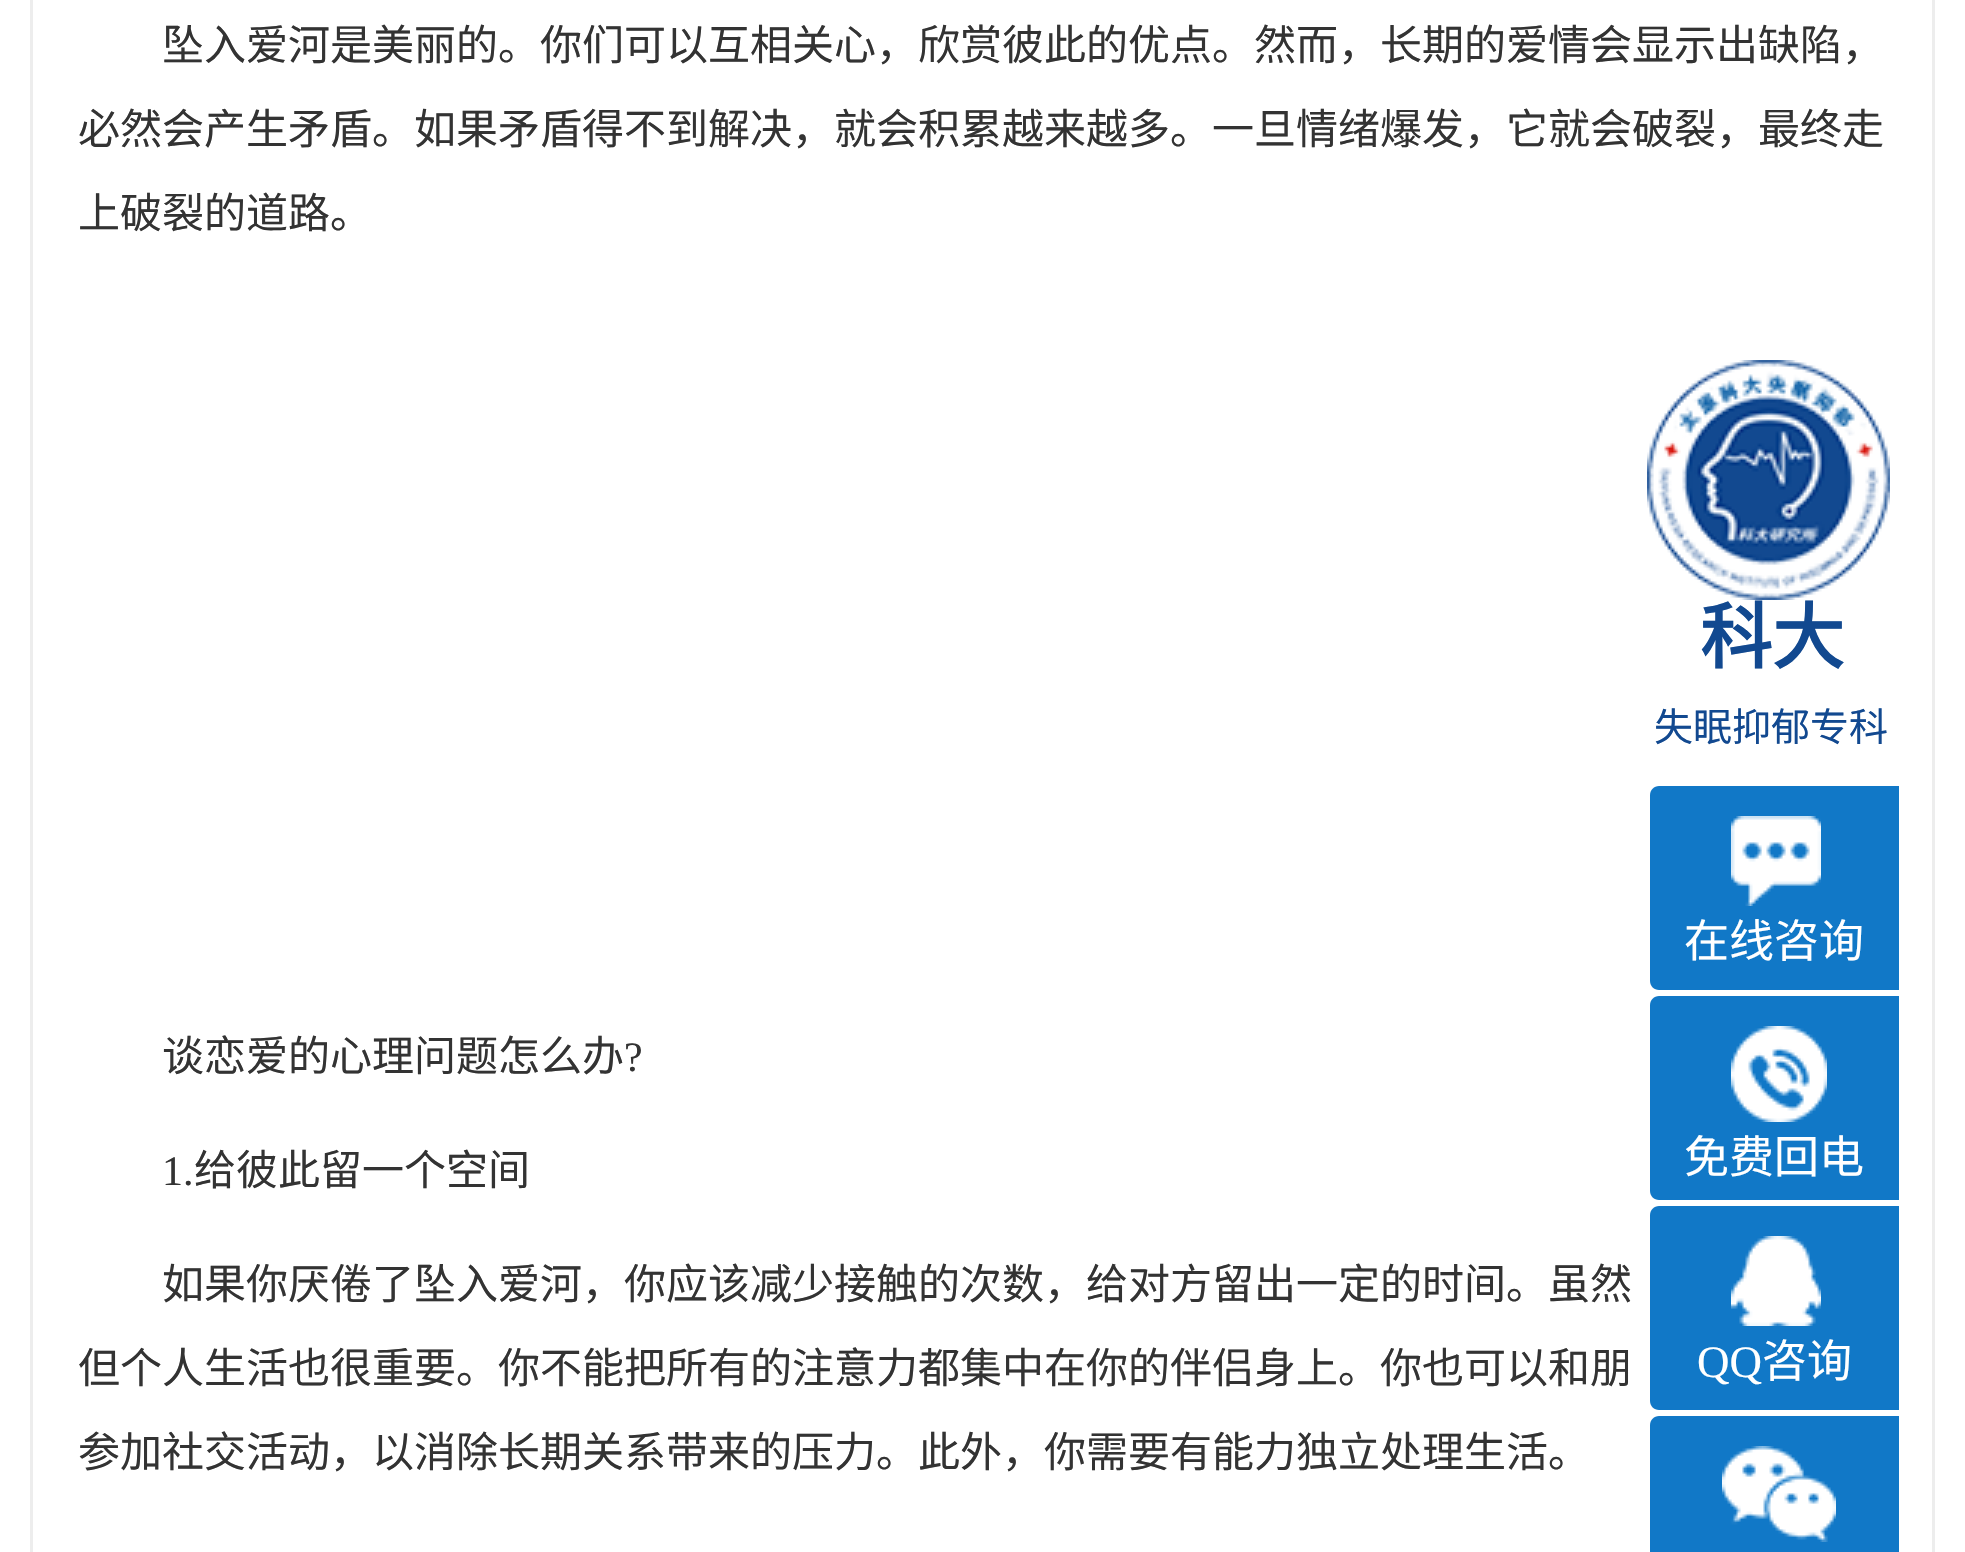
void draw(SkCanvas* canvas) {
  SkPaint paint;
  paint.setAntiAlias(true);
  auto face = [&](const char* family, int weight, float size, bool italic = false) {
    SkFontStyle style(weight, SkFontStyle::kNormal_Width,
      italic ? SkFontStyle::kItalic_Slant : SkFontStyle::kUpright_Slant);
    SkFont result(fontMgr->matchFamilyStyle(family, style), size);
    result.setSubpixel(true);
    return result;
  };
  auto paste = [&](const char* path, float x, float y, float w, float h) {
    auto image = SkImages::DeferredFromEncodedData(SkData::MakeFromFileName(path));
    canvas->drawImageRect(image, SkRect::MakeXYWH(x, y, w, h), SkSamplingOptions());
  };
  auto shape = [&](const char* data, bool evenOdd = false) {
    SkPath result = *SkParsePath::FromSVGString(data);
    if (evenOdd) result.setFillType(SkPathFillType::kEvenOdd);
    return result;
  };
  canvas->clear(0xffffffff);
  paint.setColor(0xffededed);
  canvas->drawPath(shape("M1935-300V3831L1932 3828V-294Z"), paint);
  canvas->drawPath(shape("M30 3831V-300L33-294V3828Z"), paint);
  paste("img/1.png", 1647, 360, 243, 240);
  paint.setColor(0xff1178c7);
  canvas->drawPath(shape("M1659 786H1899V990H1659C1654 990 1650 986 1650 981V795C1650 790 1654 786 1659 786Z"), paint);
  paste("img/2.png", 1731, 816, 90, 90);
  canvas->drawPath(shape("M1659 996H1899V1200H1659C1654 1200 1650 1196 1650 1191V1005C1650 1000 1654 996 1659 996Z"), paint);
  paste("img/3.png", 1731, 1026, 96, 96);
  canvas->drawPath(shape("M1659 1206H1899V1410H1659C1654 1410 1650 1406 1650 1401V1215C1650 1210 1654 1206 1659 1206Z"), paint);
  paste("img/4.png", 1731, 1236, 90, 90);
  canvas->drawPath(shape("M1659 1416H1899V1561H1659C1654 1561 1650 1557 1650 1552V1425C1650 1420 1654 1416 1659 1416Z"), paint);
  paste("img/5.png", 1722, 1446, 114, 96);
  auto f0 = face("Noto Sans CJK SC", 400, 42);
  paint.setColor(0xff333333);
  {
    const struct { const char* s; float x, y; } items[] = {
      {"坠入爱河是美丽的。你们可以互相关心，欣赏彼此的优点。然而，长期的爱情会显示出缺陷，", 162, 60},
      {"必然会产生矛盾。如果矛盾得不到解决，就会积累越来越多。一旦情绪爆发，它就会破裂，最终走", 78, 144},
      {"上破裂的道路。", 78, 228},
      {"谈恋爱的心理问题怎么办", 162, 1071},
    };
    for (auto [s, x, y] : items) {
      canvas->drawString(s, x, y, f0, paint);
    }
  }
  auto f1 = face("Liberation Serif", 400, 42);
  canvas->drawString("?", 624, 1071, f1, paint);
  canvas->drawString("1.", 162, 1185, f1, paint);
  {
    const struct { const char* s; float x, y; } items[] = {
      {"给彼此留一个空间", 194, 1185},
      {"如果你厌倦了坠入爱河，你应该减少接触的次数，给对方留出一定的时间。虽然", 162, 1299},
      {"但个人生活也很重要。你不能把所有的注意力都集中在你的伴侣身上。你也可以和朋", 78, 1383},
      {"参加社交活动，以消除长期关系带来的压力。此外，你需要有能力独立处理生活。", 78, 1467},
    };
    for (auto [s, x, y] : items) {
      canvas->drawString(s, x, y, f0, paint);
    }
  }
  auto f2 = face("Noto Sans CJK SC", 700, 72);
  paint.setColor(0xff124990);
  canvas->drawString("科大", 1700, 663, f2, paint);
  auto f3 = face("Noto Sans CJK SC", 400, 39);
  canvas->drawString("失眠抑郁专科", 1654, 741, f3, paint);
  auto f4 = face("Noto Sans CJK SC", 400, 45);
  paint.setColor(0xffffffff);
  canvas->drawString("在线咨询", 1684, 957, f4, paint);
  canvas->drawString("免费回电", 1684, 1173, f4, paint);
  auto f5 = face("Liberation Serif", 400, 45);
  canvas->drawString("QQ", 1697, 1377, f5, paint);
  canvas->drawString("咨询", 1762, 1377, f4, paint);
}
